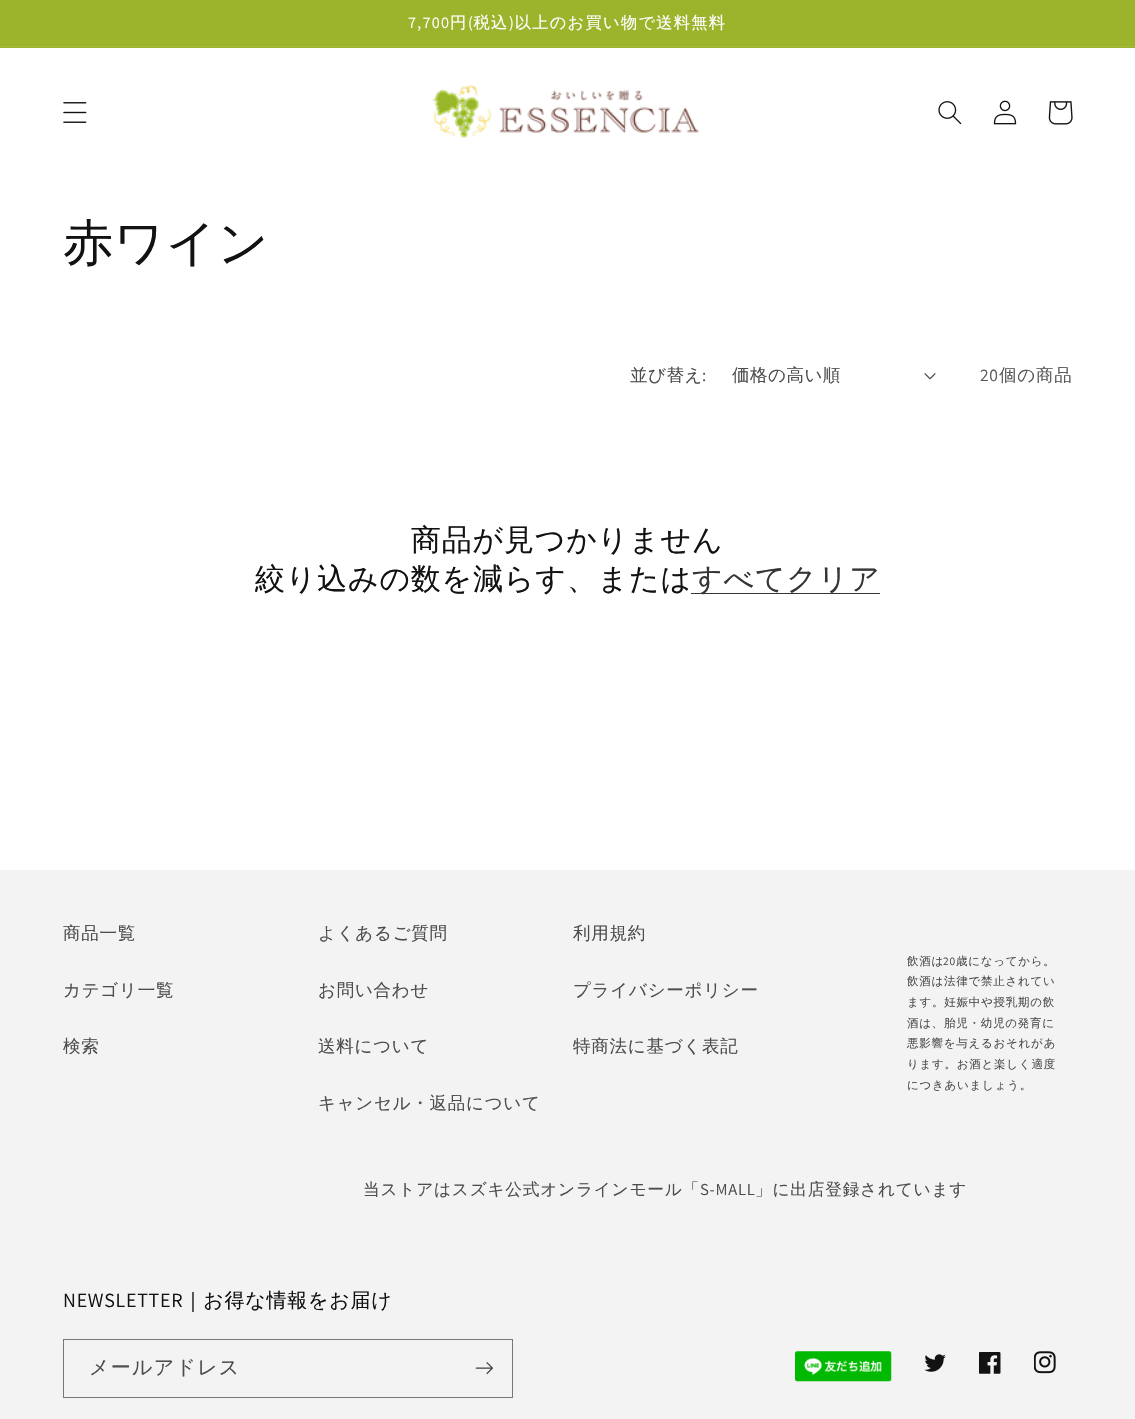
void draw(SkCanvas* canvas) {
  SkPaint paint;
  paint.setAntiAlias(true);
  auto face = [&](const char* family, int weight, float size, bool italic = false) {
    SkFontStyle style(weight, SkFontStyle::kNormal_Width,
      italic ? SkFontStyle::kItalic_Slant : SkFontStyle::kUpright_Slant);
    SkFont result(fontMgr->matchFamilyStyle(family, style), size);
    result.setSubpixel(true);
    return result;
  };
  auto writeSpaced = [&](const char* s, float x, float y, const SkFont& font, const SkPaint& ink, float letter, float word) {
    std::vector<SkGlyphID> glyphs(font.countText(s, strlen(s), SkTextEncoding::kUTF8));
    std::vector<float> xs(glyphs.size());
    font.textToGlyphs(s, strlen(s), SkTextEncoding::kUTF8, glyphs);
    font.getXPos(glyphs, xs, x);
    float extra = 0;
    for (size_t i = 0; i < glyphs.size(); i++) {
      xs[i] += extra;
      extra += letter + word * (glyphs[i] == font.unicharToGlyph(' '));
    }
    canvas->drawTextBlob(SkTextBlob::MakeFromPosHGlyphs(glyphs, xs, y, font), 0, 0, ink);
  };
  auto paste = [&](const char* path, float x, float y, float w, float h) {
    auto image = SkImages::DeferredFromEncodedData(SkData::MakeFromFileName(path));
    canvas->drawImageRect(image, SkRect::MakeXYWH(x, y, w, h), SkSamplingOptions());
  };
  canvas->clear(0xffffffff);
  paint.setColor(0xff9cb42c);
  canvas->drawRect(SkRect::MakeXYWH(0, 0, 1135, 48), paint);
  paint.setColor(0xffa4ba3d);
  canvas->drawRect(SkRect::MakeXYWH(0, 46, 1135, 1), paint);
  paste("img/1.png", 63, 102, 24, 21);
  paste("img/2.png", 432, 85, 267, 53);
  paste("img/3.png", 938, 101, 24, 24);
  paste("img/4.png", 993, 100, 24, 25);
  paste("img/5.png", 1048, 101, 25, 24);
  paste("img/6.png", 924, 373, 12, 7);
  paint.setColor(0xff363636);
  canvas->drawRect(SkRect::MakeXYWH(691, 593, 189, 1), paint);
  paint.setColor(0xfff3f3f3);
  canvas->drawRect(SkRect::MakeXYWH(0, 870, 1135, 549), paint);
  paint.setStroke(true);
  paint.setStrokeWidth(1);
  paint.setColor(0xff777777);
  canvas->drawRect(SkRect::MakeXYWH(63.5f, 1339.5f, 449, 58), paint);
  paste("img/7.png", 475, 1362, 18, 13);
  paste("img/8.png", 795, 1351, 97, 31);
  paste("img/9.png", 924, 1354, 22, 18);
  paste("img/10.png", 979, 1352, 22, 22);
  paste("img/11.png", 1034, 1351, 22, 23);
  auto f0 = face("WenQuanYi Zen Hei", 500, 16.25f);
  paint.setStroke(false);
  paint.setColor(0xffffffff);
  writeSpaced("円 税込 以上のお買い物で送料無料", 450, 28, f0, paint, 1.25f, 0);
  auto f1 = face("Assistant", 400, 16.25f);
  {
    const struct { const char* s; float x, y; } items[] = {
      {"7,700", 408, 28},
      {"(", 468, 28},
      {")", 509, 28},
    };
    for (auto [s, x, y] : items) {
      writeSpaced(s, x, y, f1, paint, 1.25f, 0);
    }
  }
  auto f2 = face("WenQuanYi Zen Hei", 500, 50);
  paint.setColor(0xff121212);
  writeSpaced("赤ワイン", 63, 260, f2, paint, 0.75f, 0);
  auto f3 = face("WenQuanYi Zen Hei", 500, 17.5f);
  paint.setColor(0xff4d4d4d);
  writeSpaced("並び替え", 630, 381, f3, paint, 0.5f, 0);
  auto f4 = face("Assistant", 400, 17.5f);
  writeSpaced(":", 702, 381, f4, paint, 0.5f, 0);
  writeSpaced("価格の高い順", 732, 381, f3, paint, 0.5f, 0);
  paint.setColor(0xff595959);
  writeSpaced("20", 980, 381, f4, paint, 0.75f, 0);
  writeSpaced("個の商品", 999, 381, f3, paint, 0.75f, 0);
  auto f5 = face("WenQuanYi Zen Hei", 500, 30);
  paint.setColor(0xff121212);
  writeSpaced("商品が見つかりません", 411, 550, f5, paint, 0.75f, 0);
  writeSpaced("絞り込みの数を減らす、または", 255, 589, f5, paint, 0.75f, 0);
  paint.setColor(0xff353535);
  writeSpaced("すべてクリア", 692, 589, f5, paint, 0.75f, 0);
  paint.setColor(0xff4d4d4d);
  {
    const struct { const char* s; float x, y; } items[] = {
      {"商品一覧", 63, 939},
      {"カテゴリ一覧", 63, 996},
      {"検索", 63, 1052},
      {"よくあるご質問", 318, 939},
      {"お問い合わせ", 318, 996},
      {"送料について", 318, 1052},
      {"キャンセル・返品について", 318, 1109},
      {"利用規約", 573, 939},
      {"プライバシーポリシー", 573, 996},
      {"特商法に基づく表記", 573, 1052},
    };
    for (auto [s, x, y] : items) {
      writeSpaced(s, x, y, f3, paint, 0.75f, 0);
    }
  }
  auto f6 = face("WenQuanYi Zen Hei", 500, 11.5f);
  writeSpaced("飲酒は", 907, 965, f6, paint, 0.75f, 0);
  auto f7 = face("Assistant", 400, 11.5f);
  writeSpaced("20", 943, 965, f7, paint, 0.75f, 0);
  {
    const struct { const char* s; float x, y; } items[] = {
      {"歳になってから。", 956, 965},
      {"飲酒は法律で禁止されてい", 907, 985},
      {"ます。妊娠中や授乳期の飲", 907, 1006},
      {"酒は、胎児・幼児の発育に", 907, 1027},
      {"悪影響を与えるおそれがあ", 907, 1047},
      {"ります。お酒と楽しく適度", 907, 1068},
      {"につきあいましょう。", 907, 1089},
    };
    for (auto [s, x, y] : items) {
      writeSpaced(s, x, y, f6, paint, 0.75f, 0);
    }
  }
  auto f8 = face("WenQuanYi Zen Hei", 500, 16.7f);
  writeSpaced("当ストアはスズキ公式オンラインモール「", 363, 1195, f8, paint, 0.75f, 0);
  auto f9 = face("Assistant", 400, 16.7f);
  writeSpaced("S-MALL", 700, 1195, f9, paint, 0.75f, 0);
  writeSpaced("」に出店登録されています", 755, 1195, f8, paint, 0.75f, 0);
  auto f10 = face("Assistant", 400, 20);
  paint.setColor(0xff121212);
  writeSpaced("NEWSLETTER", 63, 1307, f10, paint, 0.75f, 0);
  auto f11 = face("WenQuanYi Zen Hei", 500, 20);
  writeSpaced("｜お得な情報をお届け", 183, 1307, f11, paint, 0.75f, 0);
  paint.setColor(0xff4d4d4d);
  writeSpaced("メールアドレス", 89, 1374, f11, paint, 1.25f, 0);
}
